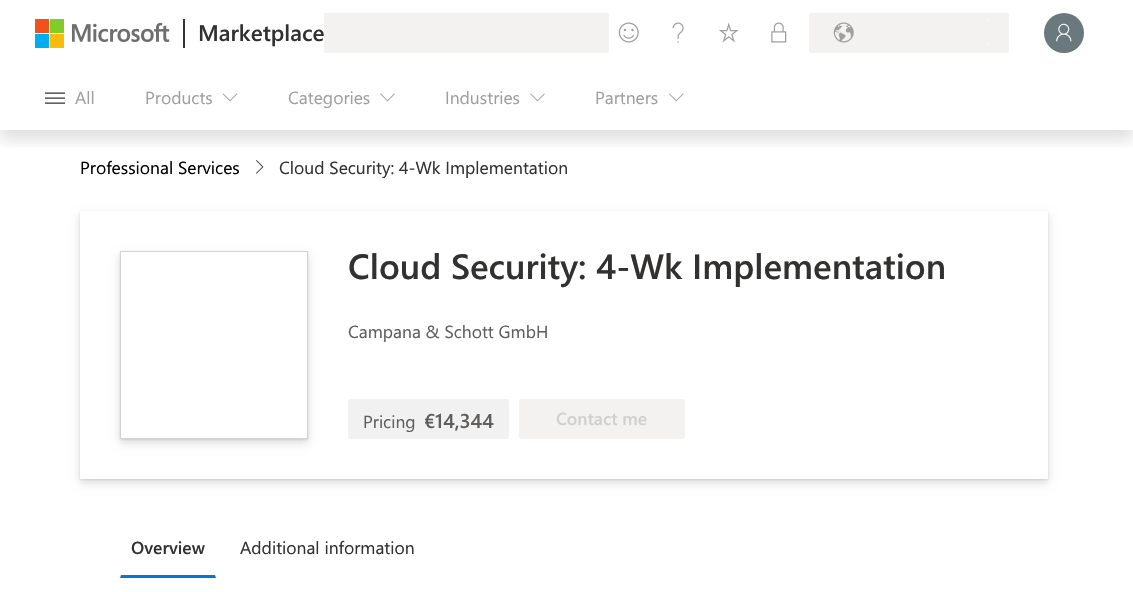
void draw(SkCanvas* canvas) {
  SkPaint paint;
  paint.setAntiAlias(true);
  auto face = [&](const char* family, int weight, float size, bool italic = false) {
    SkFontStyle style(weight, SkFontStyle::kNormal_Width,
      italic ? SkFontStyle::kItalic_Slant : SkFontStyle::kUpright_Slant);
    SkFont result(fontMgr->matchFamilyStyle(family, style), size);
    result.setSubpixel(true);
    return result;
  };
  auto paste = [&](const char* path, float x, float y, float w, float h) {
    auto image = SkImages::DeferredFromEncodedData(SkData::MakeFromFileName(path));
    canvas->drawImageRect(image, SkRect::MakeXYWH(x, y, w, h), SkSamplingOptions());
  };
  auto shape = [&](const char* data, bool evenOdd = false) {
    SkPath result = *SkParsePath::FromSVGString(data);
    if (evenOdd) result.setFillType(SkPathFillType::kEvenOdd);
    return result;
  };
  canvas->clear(0xffffffff);
  paste("img/16.png", 256, 160, 8, 14);
  canvas->save();
  canvas->clipRect(SkRect::MakeXYWH(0, 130, 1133, 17));
  paint.setColor(0x1f000000);
  paint.setMaskFilter(SkMaskFilter::MakeBlur(kNormal_SkBlurStyle, 7.5f));
  canvas->drawRect(SkRect::MakeXYWH(0, 10, 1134, 130), paint);
  paint.setMaskFilter(nullptr);
  canvas->restore();
  paste("img/1.png", 35, 19, 135, 29);
  {
    const struct { float x, y, w, h; SkColor color; } items[] = {
      {183, 19, 2, 29, 0xff323130},
      {324, 13, 285, 40, 0xfff3f2f1},
      {324, 13, 1, 1, 0xfff7f6f5},
      {608, 13, 1, 1, 0xfff9f9f9},
    };
    for (auto [x, y, w, h, color] : items) {
      paint.setColor(color);
      canvas->drawRect(SkRect::MakeXYWH(x, y, w, h), paint);
    }
  }
  paste("img/2.png", 324, 51, 1, 2);
  paste("img/3.png", 607, 51, 2, 2);
  paste("img/4.png", 618, 22, 21, 21);
  paste("img/5.png", 672, 22, 12, 21);
  paste("img/6.png", 719, 22, 20, 21);
  paste("img/7.png", 771, 22, 16, 21);
  paint.setColor(0xfff3f2f1);
  canvas->drawRoundRect(SkRect::MakeXYWH(809, 13, 200, 40), 2.5f, 2.5f, paint);
  paste("img/8.png", 833, 22, 21, 21);
  paint.setColor(0xfffcfcfc);
  canvas->drawRect(SkRect::MakeXYWH(864, 20, 1, 1), paint);
  paste("img/9.png", 987, 20, 2, 1);
  canvas->drawRect(SkRect::MakeXYWH(864, 44, 1, 1), paint);
  paste("img/10.png", 987, 44, 2, 1);
  paint.setColor(0xff69797e);
  canvas->drawCircle(1064, 33, 20, paint);
  paste("img/11.png", 1056, 23, 16, 19);
  paste("img/12.png", 45, 92, 20, 12);
  paste("img/13.png", 222, 93, 16, 9);
  paste("img/14.png", 380, 93, 15, 9);
  paste("img/14.png", 530, 93, 15, 9);
  paste("img/15.png", 669, 93, 15, 9);
  paint.setColor(0x1c000000);
  paint.setMaskFilter(SkMaskFilter::MakeBlur(kNormal_SkBlurStyle, 1));
  canvas->drawRect(SkRect::MakeXYWH(80, 213, 968, 267), paint);
  paint.setMaskFilter(nullptr);
  paint.setColor(0x21000000);
  paint.setMaskFilter(SkMaskFilter::MakeBlur(kNormal_SkBlurStyle, 4.5f));
  canvas->drawRect(SkRect::MakeXYWH(80, 215, 968, 268), paint);
  paint.setMaskFilter(nullptr);
  paint.setColor(0xffffffff);
  canvas->drawRect(SkRect::MakeXYWH(80, 211, 968, 268), paint);
  canvas->save();
  canvas->clipPath(shape("M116 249H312V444H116ZM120 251H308V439H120Z", true), true);
  paint.setColor(0x1c000000);
  paint.setMaskFilter(SkMaskFilter::MakeBlur(kNormal_SkBlurStyle, 1));
  canvas->drawRect(SkRect::MakeXYWH(120, 253, 188, 187), paint);
  paint.setMaskFilter(nullptr);
  canvas->restore();
  canvas->save();
  canvas->clipPath(shape("M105 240H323V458H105ZM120 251H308V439H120Z", true), true);
  paint.setColor(0x21000000);
  paint.setMaskFilter(SkMaskFilter::MakeBlur(kNormal_SkBlurStyle, 4.5f));
  canvas->drawRect(SkRect::MakeXYWH(120, 255, 188, 188), paint);
  paint.setMaskFilter(nullptr);
  canvas->restore();
  paint.setStroke(true);
  paint.setStrokeWidth(1);
  paint.setColor(0xffd3d3d3);
  canvas->drawRect(SkRect::MakeXYWH(120.5f, 251.5f, 187, 187), paint);
  paint.setStroke(false);
  paint.setColor(0xfff1f1f1);
  canvas->drawRoundRect(SkRect::MakeXYWH(348, 399, 161, 40), 2.5f, 2.5f, paint);
  paint.setColor(0xfff3f2f1);
  canvas->drawRoundRect(SkRect::MakeXYWH(519.5f, 399.5f, 165, 39), 2, 2, paint);
  paint.setStroke(true);
  canvas->drawRoundRect(SkRect::MakeXYWH(519.5f, 399.5f, 165, 39), 2, 2, paint);
  paint.setStroke(false);
  paint.setColor(0xff0078d4);
  canvas->drawPath(shape("M216 578H120L121 575H215Z"), paint);
  auto f0 = face("Segoe UI", 600, 22.5f);
  paint.setColor(0xff323130);
  canvas->drawString("Marketplace", 198, 41, f0, paint);
  auto f1 = face("Segoe UI", 400, 17.5f);
  paint.setColor(0xffa19f9d);
  {
    const struct { const char* s; float x, y; } items[] = {
      {"All", 75, 104},
      {"Products", 145, 104},
      {"Categories", 288, 104},
      {"Industries", 445, 104},
      {"Partners", 595, 104},
    };
    for (auto [s, x, y] : items) {
      canvas->drawString(s, x, y, f1, paint);
    }
  }
  paint.setColor(0xff000000);
  canvas->drawString("Professional Services", 80, 174, f1, paint);
  paint.setColor(0xff323130);
  canvas->drawString("Cloud Security: 4-Wk Implementation", 279, 174, f1, paint);
  auto f2 = face("Segoe UI", 600, 35);
  canvas->drawString("Cloud Security: 4-Wk Implementation", 348, 279, f2, paint);
  paint.setColor(0xff605e5c);
  canvas->drawString("Campana & Schott GmbH", 348, 338, f1, paint);
  canvas->drawString("Pricing", 363, 428, f1, paint);
  auto f3 = face("Segoe UI", 600, 20);
  canvas->drawString("€14,344", 424, 428, f3, paint);
  auto f4 = face("Segoe UI", 600, 17.5f);
  paint.setColor(0xffd2d0ce);
  canvas->drawString("Contact me", 556, 425, f4, paint);
  paint.setColor(0xff323130);
  canvas->drawString("Overview", 131, 554, f4, paint);
  canvas->drawString("Additional information", 240, 554, f1, paint);
}
